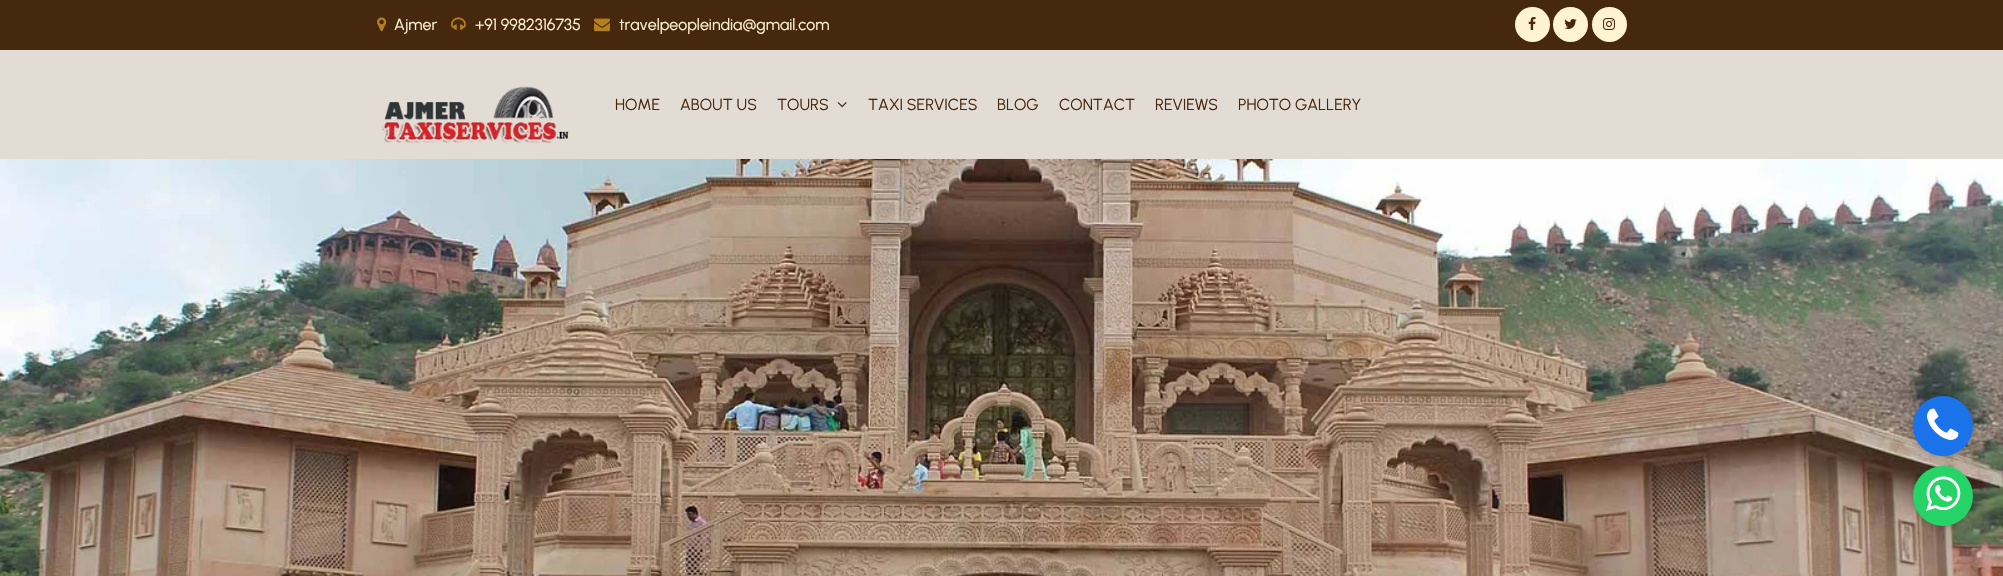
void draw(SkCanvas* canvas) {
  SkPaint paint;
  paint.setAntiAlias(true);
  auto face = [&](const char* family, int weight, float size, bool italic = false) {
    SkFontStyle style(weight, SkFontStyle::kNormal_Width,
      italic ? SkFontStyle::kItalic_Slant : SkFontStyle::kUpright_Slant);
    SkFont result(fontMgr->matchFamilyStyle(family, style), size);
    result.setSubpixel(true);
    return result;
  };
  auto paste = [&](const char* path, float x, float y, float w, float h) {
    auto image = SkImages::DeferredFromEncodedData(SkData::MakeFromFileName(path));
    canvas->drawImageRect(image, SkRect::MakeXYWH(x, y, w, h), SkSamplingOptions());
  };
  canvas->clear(0xffffffff);
  paint.setColor(0xffe3dcd5);
  canvas->drawRect(SkRect::MakeXYWH(0, 50, 2003, 109), paint);
  paint.setColor(0xff46280f);
  canvas->drawRect(SkRect::MakeXYWH(0, 0, 2003, 50), paint);
  paste("img/1.png", 377, 17, 10, 15);
  paste("img/2.png", 451, 17, 15, 13);
  paste("img/3.png", 594, 18, 16, 14);
  paint.setColor(0xfffff4d2);
  canvas->drawCircle(1532.5f, 24.5f, 17.5f, paint);
  paste("img/4.png", 1528, 17, 8, 13);
  canvas->drawCircle(1570.5f, 24.5f, 17.5f, paint);
  paste("img/5.png", 1564, 19, 13, 10);
  canvas->drawCircle(1609.5f, 24.5f, 17.5f, paint);
  paste("img/6.png", 1603, 18, 12, 12);
  paste("img/7.png", 382, 86, 187, 58);
  paste("img/8.png", 837, 102, 10, 6);
  paste("img/9.png", 0, 159, 2003, 417);
  paint.setColor(0x47202124);
  paint.setMaskFilter(SkMaskFilter::MakeBlur(kNormal_SkBlurStyle, 3));
  canvas->drawRoundRect(SkRect::MakeXYWH(1913, 397, 60, 60), 30, 30, paint);
  paint.setMaskFilter(nullptr);
  paint.setColor(0xff1a73e8);
  canvas->drawCircle(1943, 426, 30, paint);
  paste("img/10.png", 1927, 408, 32, 32);
  paint.setColor(0x47202124);
  paint.setMaskFilter(SkMaskFilter::MakeBlur(kNormal_SkBlurStyle, 3));
  canvas->drawRoundRect(SkRect::MakeXYWH(1913, 467, 60, 60), 30, 30, paint);
  paint.setMaskFilter(nullptr);
  paint.setColor(0xff25d366);
  canvas->drawCircle(1943, 496, 30, paint);
  paste("img/11.png", 1926, 476, 35, 35);
  auto f0 = face("Urbanist", 400, 16);
  paint.setColor(0xfffff4d2);
  {
    const struct { const char* s; float x, y; } items[] = {
      {"Ajmer", 394, 30},
      {"+91 9982316735", 475, 30},
      {"travelpeopleindia@gmail.com", 619, 30},
    };
    for (auto [s, x, y] : items) {
      canvas->drawString(s, x, y, f0, paint);
    }
  }
  paint.setColor(0xff46280f);
  {
    const struct { const char* s; float x, y; } items[] = {
      {"HOME", 615, 110},
      {"ABOUT US", 680, 110},
      {"TOURS", 777, 110},
      {"TAXI SERVICES", 868, 110},
      {"BLOG", 997, 110},
      {"CONTACT", 1059, 110},
      {"REVIEWS", 1155, 110},
      {"PHOTO GALLERY", 1238, 110},
    };
    for (auto [s, x, y] : items) {
      canvas->drawString(s, x, y, f0, paint);
    }
  }
}
